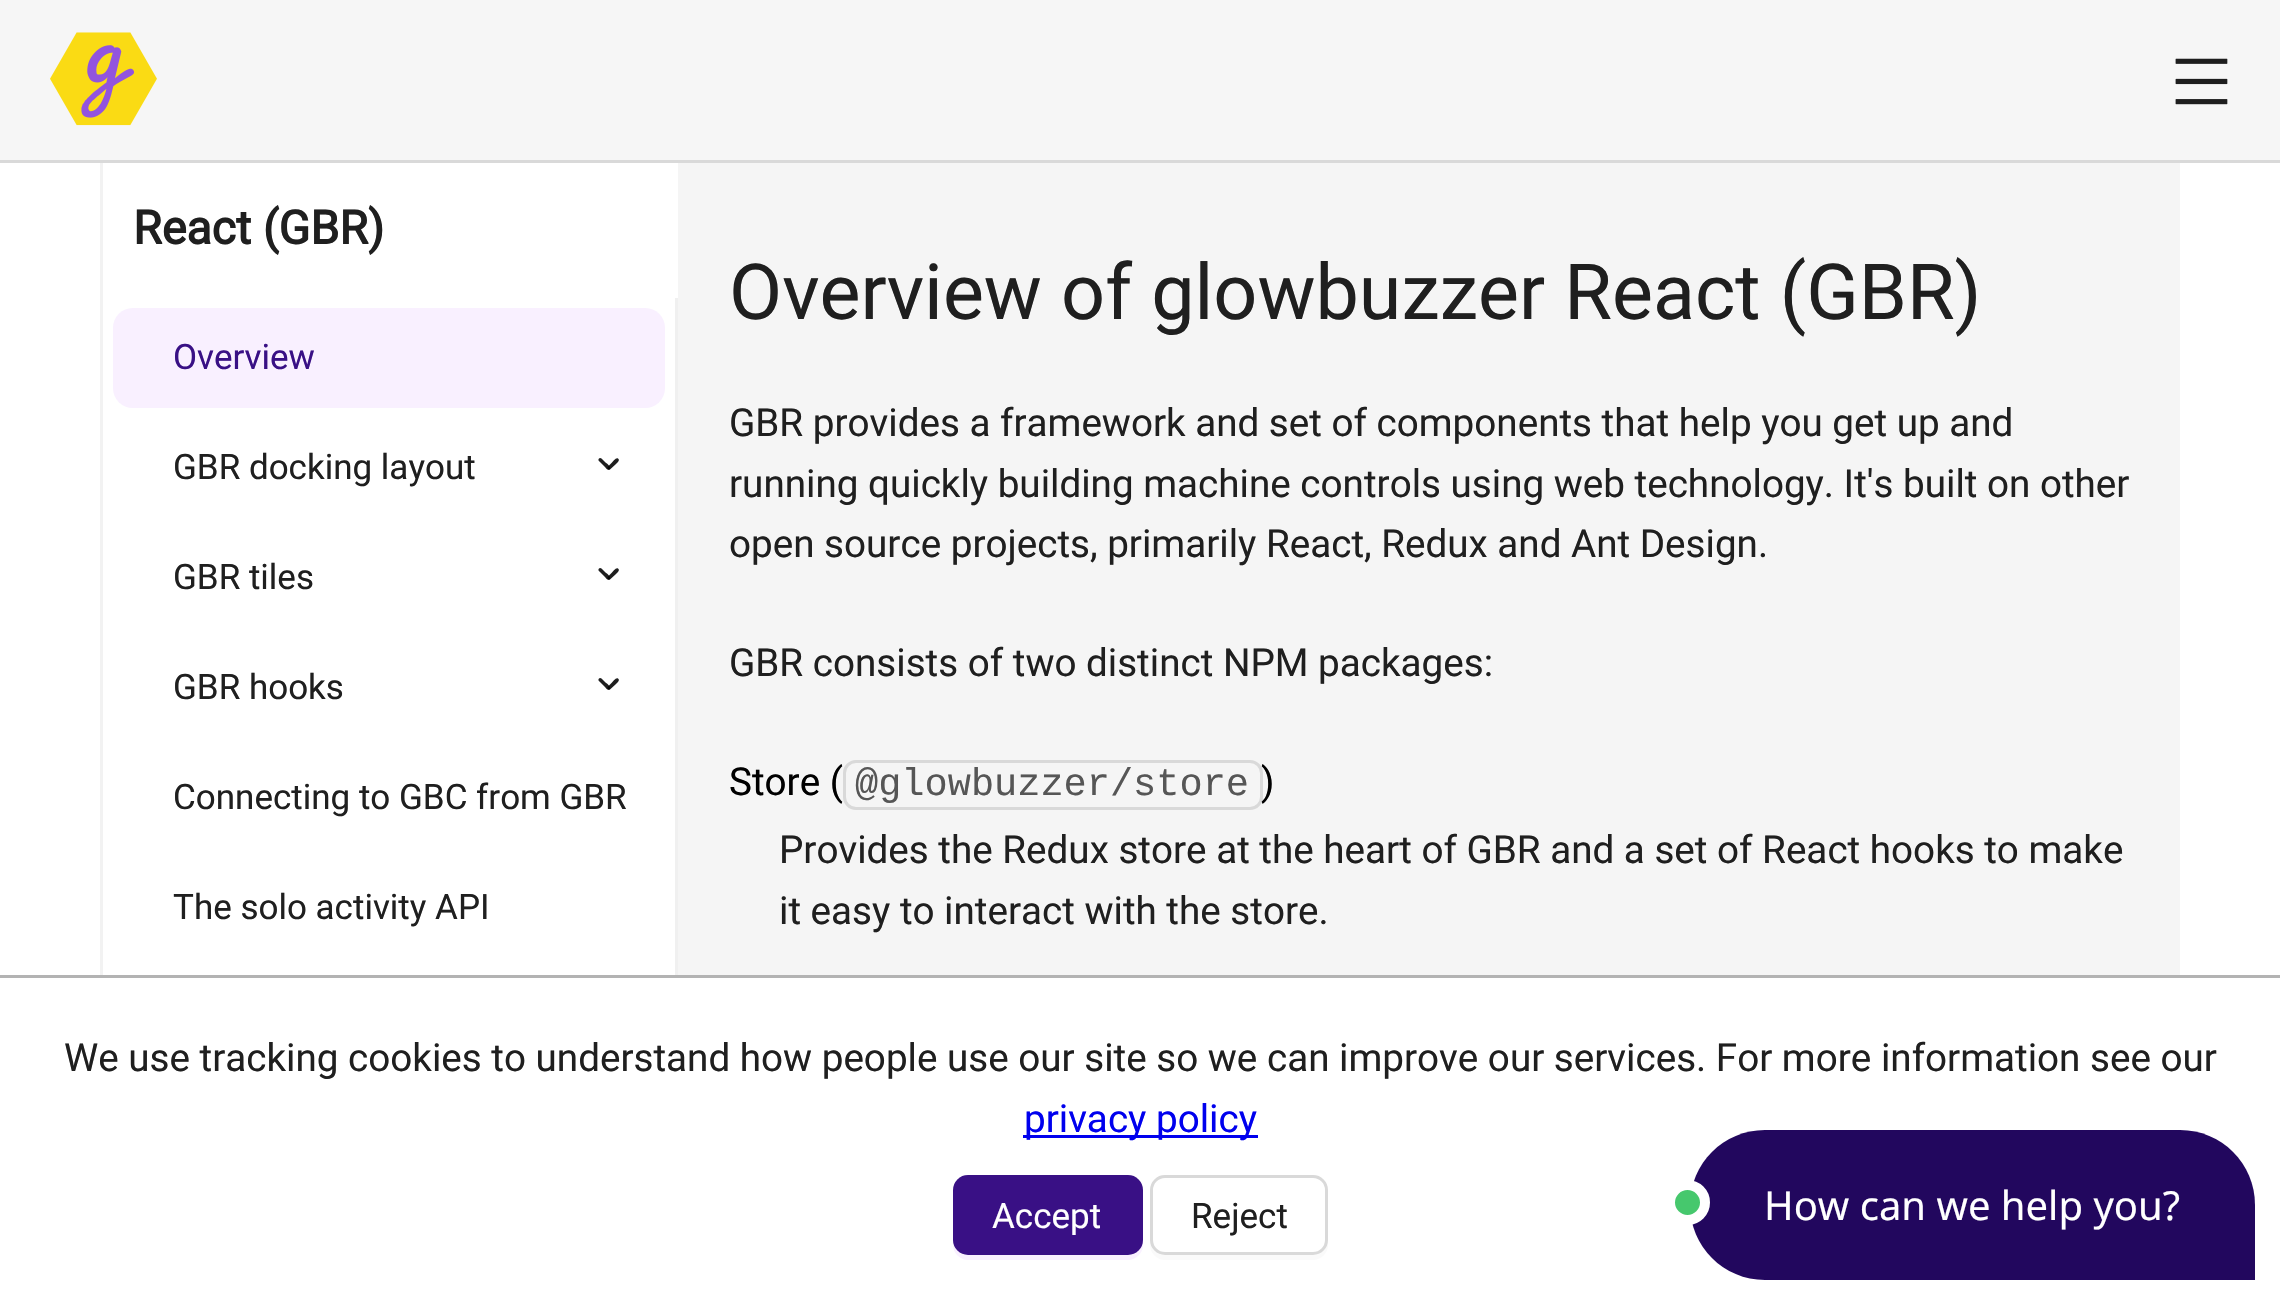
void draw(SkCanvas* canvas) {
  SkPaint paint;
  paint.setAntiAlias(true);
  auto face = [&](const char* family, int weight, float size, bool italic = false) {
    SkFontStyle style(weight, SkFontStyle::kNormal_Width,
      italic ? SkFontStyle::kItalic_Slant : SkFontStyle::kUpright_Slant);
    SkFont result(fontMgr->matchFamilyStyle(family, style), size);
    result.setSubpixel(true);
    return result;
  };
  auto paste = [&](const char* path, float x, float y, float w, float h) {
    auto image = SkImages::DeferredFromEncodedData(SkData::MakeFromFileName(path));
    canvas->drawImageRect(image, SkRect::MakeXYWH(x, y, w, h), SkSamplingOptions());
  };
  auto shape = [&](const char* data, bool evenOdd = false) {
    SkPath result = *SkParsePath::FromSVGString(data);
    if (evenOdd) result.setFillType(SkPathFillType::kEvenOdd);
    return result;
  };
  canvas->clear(0xfff6f6f6);
  paint.setColor(0xffd9d9d9);
  canvas->drawRect(SkRect::MakeXYWH(0, 160, 2280, 3), paint);
  paste("img/1.png", 50, 32, 107, 94);
  paste("img/2.png", 2175, 58, 53, 47);
  {
    const struct { float x, y, w, h; SkColor color; } items[] = {
      {0, 163, 2280, 812, 0xffffffff},
      {100, 163, 3, 812, 0xfff2f2f2},
      {675, 298, 3, 677, 0xfff0f0f0},
    };
    for (auto [x, y, w, h, color] : items) {
      paint.setColor(color);
      canvas->drawRect(SkRect::MakeXYWH(x, y, w, h), paint);
    }
  }
  paint.setColor(0xfff9f0ff);
  canvas->drawRoundRect(SkRect::MakeXYWH(113, 308, 552, 100), 20, 20, paint);
  paint.setColor(0xff1f1f1f);
  canvas->drawPath(shape("M608 466.5L612 462.5C613 461.5 616 457 618 458.5C620.5 460 617 463 616 464L610 469.5C608 470.5 606.5 468 608 466.5Z"), paint);
  paint.setColor(0xe0000000);
  canvas->drawPath(shape("M601.5 458.5L605.5 462.5C607 463.5 611 466.5 610 469C608 471.5 605.5 467.5 604.5 466.5L598.5 460.5C598 458.5 600 457 601.5 458.5Z"), paint);
  paint.setColor(0xff1f1f1f);
  canvas->drawPath(shape("M608 576.5L612 572.5C613 571.5 616 567 618 568.5C620.5 570 617 573 616 574L610 579.5C608 580.5 606.5 578 608 576.5Z"), paint);
  paint.setColor(0xe0000000);
  canvas->drawPath(shape("M601.5 568.5L605.5 572.5C607 573.5 611 576.5 610 579C608 581.5 605.5 577.5 604.5 576.5L598.5 570.5C598 568.5 600 567 601.5 568.5Z"), paint);
  paint.setColor(0xff1f1f1f);
  canvas->drawPath(shape("M608 686.5L612 682.5C613 681.5 616 677 618 678.5C620.5 680 617 683 616 684L610 689.5C608 690.5 606.5 688 608 686.5Z"), paint);
  paint.setColor(0xe0000000);
  canvas->drawPath(shape("M601.5 678.5L605.5 682.5C607 683.5 611 686.5 610 689C608 691.5 605.5 687.5 604.5 686.5L598.5 680.5C598 678.5 600 677 601.5 678.5Z"), paint);
  paint.setColor(0xfff5f5f5);
  canvas->drawRect(SkRect::MakeXYWH(678, 163, 1502, 812), paint);
  paint.setStroke(true);
  paint.setStrokeWidth(3);
  paint.setColor(0xffd9d9d9);
  canvas->drawRoundRect(SkRect::MakeXYWH(844.5f, 761.5f, 417, 47), 11.5f, 11.5f, paint);
  paint.setStroke(false);
  {
    const struct { float x, y, w, h; SkColor color; } items[] = {
      {0, 978, 2280, 326, 0xffffffff},
      {0, 975, 2280, 3, 0xffb3b3b3},
      {1023, 1135, 235, 3, 0xff0000ee},
    };
    for (auto [x, y, w, h, color] : items) {
      paint.setColor(color);
      canvas->drawRect(SkRect::MakeXYWH(x, y, w, h), paint);
    }
  }
  paint.setColor(0xfff9f0ff);
  canvas->drawPath(shape("M953 1244V1245C953 1253 960 1260 968 1260H1128C1136 1260 1143 1253 1143 1245V1195L1142 1191V1240C1142 1248 1136 1255 1128 1255H968C961 1255 955 1250 953 1244Z"), paint);
  paint.setColor(0xff391085);
  canvas->drawRoundRect(SkRect::MakeXYWH(953, 1175, 190, 80), 15, 15, paint);
  paint.setColor(0xfffafafa);
  canvas->drawPath(shape("M1150 1240V1245C1150 1253 1157 1260 1165 1260H1313C1321 1260 1328 1253 1328 1245V1195V1191V1240C1328 1248 1321 1255 1312 1255H1165C1157 1255 1150 1248 1150 1240Z"), paint);
  paint.setStroke(true);
  paint.setColor(0xffd9d9d9);
  canvas->drawRoundRect(SkRect::MakeXYWH(1151.5f, 1176.5f, 175, 77), 13.5f, 13.5f, paint);
  paint.setStroke(false);
  paint.setColor(0xff22075e);
  canvas->drawPath(shape("M1765 1130H2180C2221.5 1130 2255 1163.5 2255 1205V1280H1765C1723.5 1280 1690 1246.5 1690 1205C1690 1163.5 1723.5 1130 1765 1130Z"), paint);
  paint.setColor(0xff46c86d);
  canvas->drawCircle(1687.5f, 1202.5f, 17.5f, paint);
  paint.setStroke(true);
  paint.setStrokeWidth(10);
  paint.setColor(0xffffffff);
  canvas->drawCircle(1687.5f, 1202.5f, 17.5f, paint);
  auto f0 = face("Roboto", 700, 46.5f);
  paint.setStroke(false);
  paint.setColor(0xff1f1f1f);
  canvas->drawString("React (GBR)", 133, 244, f0, paint);
  auto f1 = face("Roboto", 400, 35);
  paint.setColor(0xff391085);
  canvas->drawString("Overview", 173, 369, f1, paint);
  paint.setColor(0xff1f1f1f);
  {
    const struct { const char* s; float x, y; } items[] = {
      {"GBR docking layout", 173, 479},
      {"GBR tiles", 173, 589},
      {"GBR hooks", 173, 699},
      {"Connecting to GBC from GBR", 173, 809},
      {"The solo activity API", 173, 919},
    };
    for (auto [s, x, y] : items) {
      canvas->drawString(s, x, y, f1, paint);
    }
  }
  auto f2 = face("Roboto", 400, 77.25f);
  canvas->drawString("Overview of glowbuzzer React (GBR)", 729, 319, f2, paint);
  auto f3 = face("Roboto", 400, 38.62f);
  {
    const struct { const char* s; float x, y; } items[] = {
      {"GBR provides a framework and set of components that help you get up and", 729, 436},
      {"running quickly building machine controls using web technology. It's built on other", 729, 497},
      {"open source projects, primarily React, Redux and Ant Design.", 729, 557},
      {"GBR consists of two distinct NPM packages:", 729, 676},
    };
    for (auto [s, x, y] : items) {
      canvas->drawString(s, x, y, f3, paint);
    }
  }
  paint.setColor(0xff000000);
  canvas->drawString("Store (", 729, 795, f3, paint);
  auto f4 = face("Liberation Mono", 400, 38.62f);
  paint.setColor(0xff565656);
  canvas->drawString("@glowbuzzer/store", 855, 795, f4, paint);
  paint.setColor(0xff000000);
  canvas->drawString(")", 1261, 795, f3, paint);
  paint.setColor(0xff1f1f1f);
  {
    const struct { const char* s; float x, y; } items[] = {
      {"Provides the Redux store at the heart of GBR and a set of React hooks to make", 779, 863},
      {"it easy to interact with the store.", 779, 924},
      {"We use tracking cookies to understand how people use our site so we can improve our services. For more information see our", 64, 1071},
    };
    for (auto [s, x, y] : items) {
      canvas->drawString(s, x, y, f3, paint);
    }
  }
  paint.setColor(0xff0000ee);
  canvas->drawString("privacy policy", 1024, 1132, f3, paint);
  paint.setColor(0xffffffff);
  canvas->drawString("Accept", 992, 1228, f1, paint);
  paint.setColor(0xff1f1f1f);
  canvas->drawString("Reject", 1191, 1228, f1, paint);
  auto f5 = face("Noto Sans", 400, 40);
  paint.setColor(0xffffffff);
  canvas->drawString("How can we help you?", 1764, 1220, f5, paint);
}
